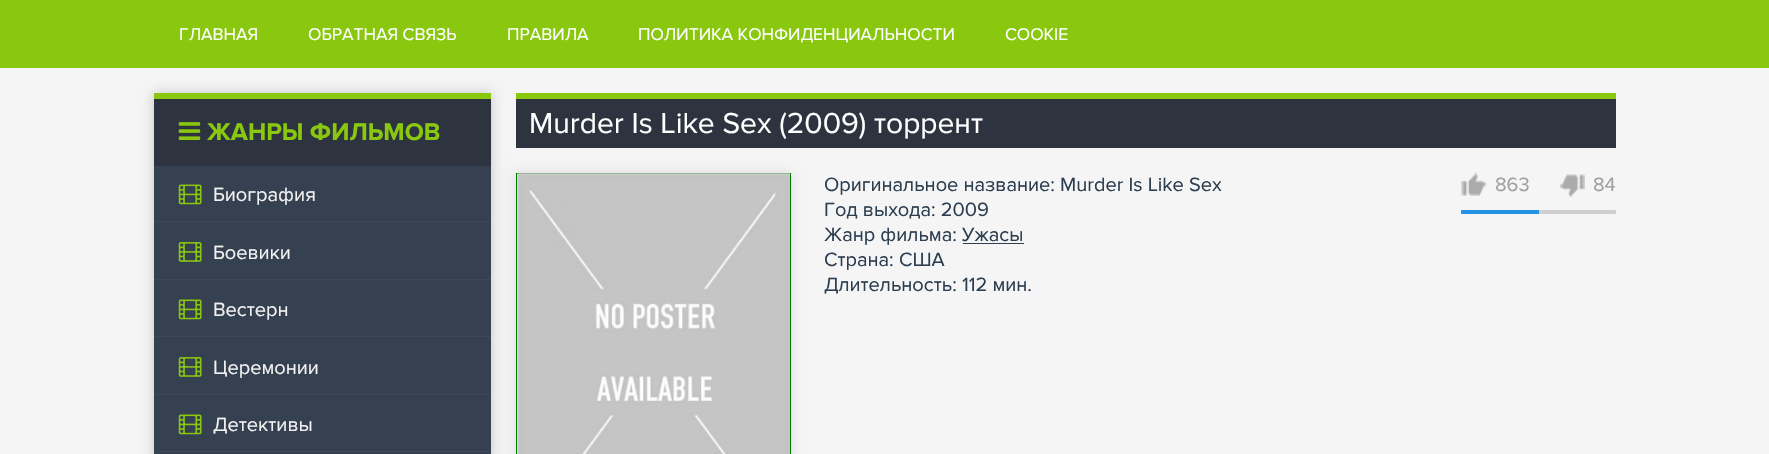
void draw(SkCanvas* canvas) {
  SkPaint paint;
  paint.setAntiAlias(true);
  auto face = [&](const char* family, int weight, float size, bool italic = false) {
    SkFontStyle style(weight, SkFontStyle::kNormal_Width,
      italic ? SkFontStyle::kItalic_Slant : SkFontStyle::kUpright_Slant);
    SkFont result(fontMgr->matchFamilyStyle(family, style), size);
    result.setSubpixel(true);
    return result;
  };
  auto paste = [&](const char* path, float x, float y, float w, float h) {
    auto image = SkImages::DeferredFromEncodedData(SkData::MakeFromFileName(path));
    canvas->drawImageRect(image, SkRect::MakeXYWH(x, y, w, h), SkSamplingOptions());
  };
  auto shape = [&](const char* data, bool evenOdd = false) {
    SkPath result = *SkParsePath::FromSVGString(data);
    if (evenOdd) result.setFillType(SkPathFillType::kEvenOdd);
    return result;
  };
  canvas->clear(0xfff5f5f5);
  paint.setColor(0xff89c80e);
  canvas->drawRect(SkRect::MakeXYWH(0, 0, 1769, 68), paint);
  paint.setColor(0x33000000);
  paint.setMaskFilter(SkMaskFilter::MakeBlur(kNormal_SkBlurStyle, 6));
  canvas->drawRect(SkRect::MakeXYWH(154, 93, 337, 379), paint);
  paint.setMaskFilter(nullptr);
  {
    const struct { float x, y, w, h; SkColor color; } items[] = {
      {154, 166, 337, 288, 0xff354050},
      {154, 93, 337, 6, 0xff89c80e},
      {154, 99, 337, 67, 0xff2d3440},
    };
    for (auto [x, y, w, h, color] : items) {
      paint.setColor(color);
      canvas->drawRect(SkRect::MakeXYWH(x, y, w, h), paint);
    }
  }
  paste("img/1.png", 178, 122, 23, 18);
  paste("img/2.png", 178, 184, 24, 21);
  paint.setColor(0xff3f4a59);
  canvas->drawRect(SkRect::MakeXYWH(154, 221, 337, 1), paint);
  paste("img/3.png", 178, 242, 24, 20);
  canvas->drawRect(SkRect::MakeXYWH(154, 279, 337, 1), paint);
  paste("img/2.png", 178, 299, 24, 21);
  canvas->drawRect(SkRect::MakeXYWH(154, 336, 337, 1), paint);
  paste("img/3.png", 178, 357, 24, 20);
  canvas->drawRect(SkRect::MakeXYWH(154, 394, 337, 1), paint);
  paste("img/2.png", 178, 414, 24, 21);
  {
    const struct { float x, y, w, h; SkColor color; } items[] = {
      {154, 451, 337, 1, 0xff3f4a59},
      {516, 99, 1100, 49, 0xff2d3440},
      {516, 93, 1100, 6, 0xff89c80e},
    };
    for (auto [x, y, w, h, color] : items) {
      paint.setColor(color);
      canvas->drawRect(SkRect::MakeXYWH(x, y, w, h), paint);
    }
  }
  paint.setColor(0x1a000000);
  paint.setMaskFilter(SkMaskFilter::MakeBlur(kNormal_SkBlurStyle, 6));
  canvas->drawRect(SkRect::MakeXYWH(516, 173, 275, 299), paint);
  paint.setMaskFilter(nullptr);
  paint.setStroke(true);
  paint.setStrokeWidth(1);
  paint.setColor(0xff008000);
  canvas->drawRect(SkRect::MakeXYWH(516.5f, 173.5f, 274, 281), paint);
  paste("img/4.png", 517, 173, 273, 281);
  paint.setStroke(false);
  paint.setColor(0xff2c3e50);
  canvas->drawRect(SkRect::MakeXYWH(963, 243, 61, 1), paint);
  paste("img/5.png", 1461, 172, 26, 24);
  paste("img/6.png", 1560, 174, 25, 23);
  paint.setColor(0xffcfcfcf);
  canvas->drawRoundRect(SkRect::MakeXYWH(1461, 210, 155, 4), 1, 1, paint);
  paint.setColor(0xff2692e6);
  canvas->drawPath(shape("M1462 210H1539V214H1462C1461.5 214 1461 213.5 1461 213V211C1461 210.5 1461.5 210 1462 210Z"), paint);
  auto f0 = face("Proxima Nova", 400, 17.5f);
  paint.setColor(0xffffffff);
  {
    const struct { const char* s; float x, y; } items[] = {
      {"ГЛАВНАЯ", 179, 40},
      {"ОБРАТНАЯ СВЯЗЬ", 308, 40},
      {"ПРАВИЛА", 507, 40},
      {"ПОЛИТИКА КОНФИДЕНЦИАЛЬНОСТИ", 638, 40},
      {"COOKIE", 1005, 40},
    };
    for (auto [s, x, y] : items) {
      canvas->drawString(s, x, y, f0, paint);
    }
  }
  auto f1 = face("Proxima Nova", 700, 25);
  paint.setColor(0xff89c80e);
  canvas->drawString("ЖАНРЫ ФИЛЬМОВ", 207, 140, f1, paint);
  auto f2 = face("Proxima Nova", 400, 20);
  paint.setColor(0xfff1f1f1);
  {
    const struct { const char* s; float x, y; } items[] = {
      {"Биография", 213, 201},
      {"Боевики", 213, 259},
      {"Вестерн", 213, 316},
      {"Церемонии", 213, 374},
      {"Детективы", 213, 431},
    };
    for (auto [s, x, y] : items) {
      canvas->drawString(s, x, y, f2, paint);
    }
  }
  auto f3 = face("Proxima Nova", 400, 30);
  paint.setColor(0xffffffff);
  canvas->drawString("Murder Is Like Sex (2009) торрент", 529, 133, f3, paint);
  paint.setColor(0xff2c3e50);
  {
    const struct { const char* s; float x, y; } items[] = {
      {"Оригинальное название: Murder Is Like Sex", 824, 191},
      {"Год выхода: 2009", 824, 216},
      {"Жанр фильма: Ужасы", 824, 241},
      {"Страна: США", 824, 266},
      {"Длительность: 112 мин.", 824, 291},
    };
    for (auto [s, x, y] : items) {
      canvas->drawString(s, x, y, f2, paint);
    }
  }
  paint.setColor(0xffa0a0a0);
  canvas->drawString("863", 1495, 191, f2, paint);
  canvas->drawString("84", 1593, 191, f2, paint);
}
